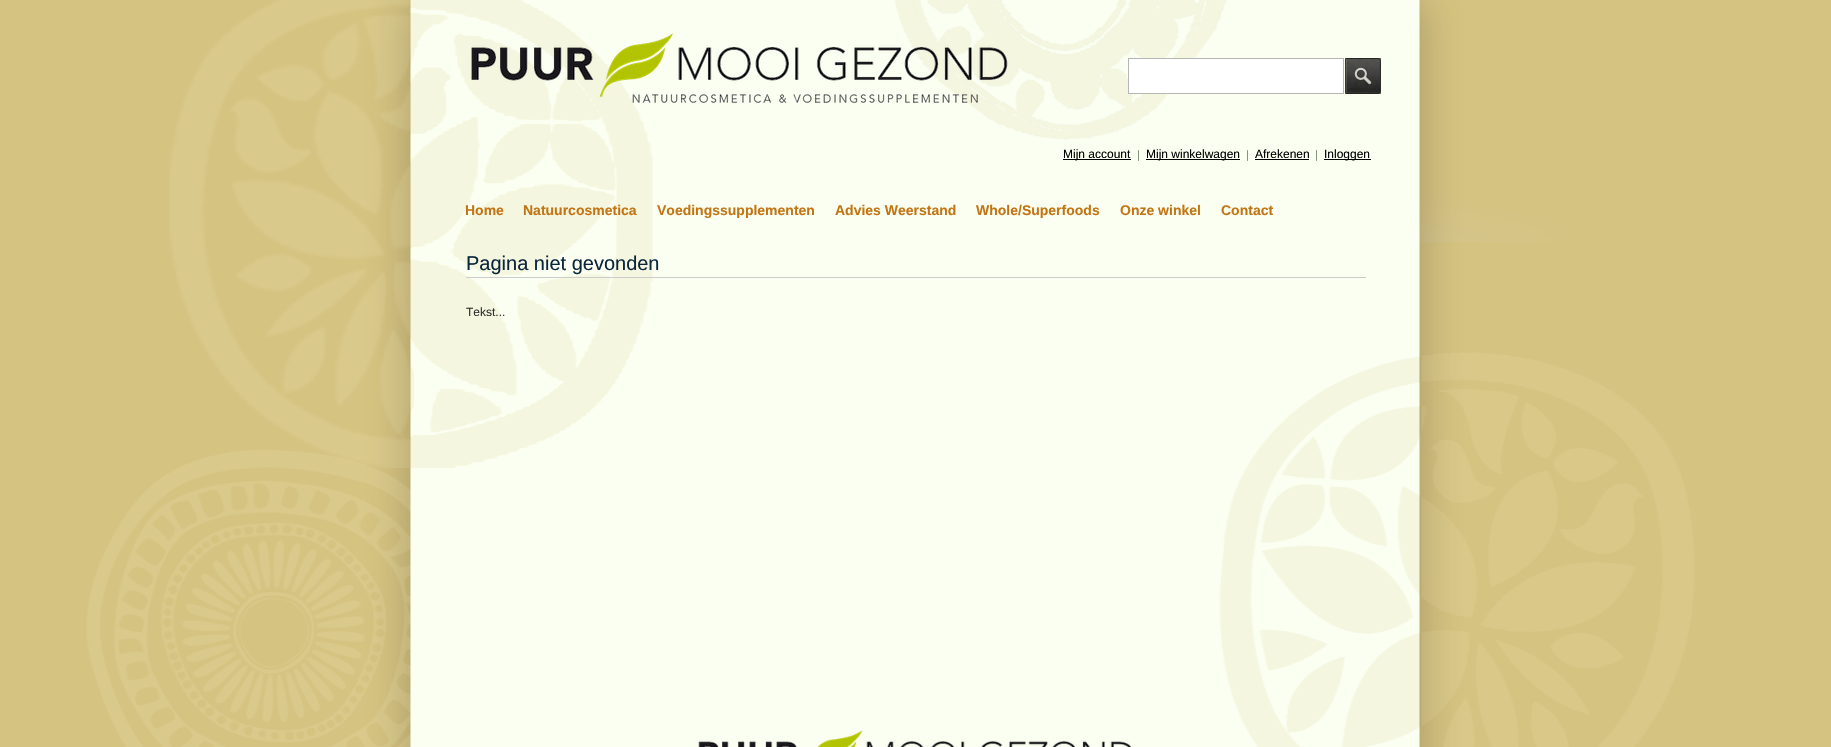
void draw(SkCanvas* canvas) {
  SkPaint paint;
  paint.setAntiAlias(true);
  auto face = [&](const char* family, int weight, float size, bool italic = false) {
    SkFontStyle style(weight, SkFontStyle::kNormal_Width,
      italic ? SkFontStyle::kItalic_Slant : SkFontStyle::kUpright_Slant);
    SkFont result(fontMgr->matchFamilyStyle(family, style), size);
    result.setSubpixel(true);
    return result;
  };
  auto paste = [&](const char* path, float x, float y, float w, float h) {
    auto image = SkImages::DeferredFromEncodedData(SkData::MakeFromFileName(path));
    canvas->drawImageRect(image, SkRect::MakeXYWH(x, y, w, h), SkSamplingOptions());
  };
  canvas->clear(0xffffffff);
  paste("img/1.png", 0, 0, 1831, 747);
  paste("img/2.png", 471, 33, 537, 70);
  paint.setColor(0xffffffff);
  canvas->drawRect(SkRect::MakeXYWH(1128.5f, 58.5f, 215, 35), paint);
  paint.setStroke(true);
  paint.setStrokeWidth(1);
  paint.setColor(0xffb6b6b6);
  canvas->drawRect(SkRect::MakeXYWH(1128.5f, 58.5f, 215, 35), paint);
  paste("img/3.png", 1345, 58, 36, 36);
  paste("img/4.png", 1138, 150, 1, 11);
  paint.setStroke(false);
  paint.setColor(0xff000000);
  canvas->drawRect(SkRect::MakeXYWH(1063, 159, 68, 1), paint);
  paste("img/4.png", 1247, 150, 1, 11);
  canvas->drawRect(SkRect::MakeXYWH(1146, 159, 94, 1), paint);
  paste("img/4.png", 1316, 150, 1, 11);
  {
    const struct { float x, y, w, h; SkColor color; } items[] = {
      {1255, 159, 54, 1, 0xff000000},
      {1324, 159, 47, 1, 0xff000000},
      {466, 277, 900, 1, 0xffcccccc},
    };
    for (auto [x, y, w, h, color] : items) {
      paint.setColor(color);
      canvas->drawRect(SkRect::MakeXYWH(x, y, w, h), paint);
    }
  }
  paste("img/5.png", 698, 730, 434, 17);
  auto f0 = face("Liberation Sans", 400, 12);
  paint.setColor(0xff000000);
  {
    const struct { const char* s; float x, y; } items[] = {
      {"Mijn account", 1063, 158},
      {"Mijn winkelwagen", 1146, 158},
      {"Afrekenen", 1255, 158},
      {"Inloggen", 1324, 158},
    };
    for (auto [s, x, y] : items) {
      canvas->drawString(s, x, y, f0, paint);
    }
  }
  auto f1 = face("Liberation Sans", 700, 14);
  paint.setColor(0xffc27514);
  {
    const struct { const char* s; float x, y; } items[] = {
      {"Home", 465, 215},
      {"Natuurcosmetica", 523, 215},
      {"Voedingssupplementen", 657, 215},
      {"Advies Weerstand", 835, 215},
      {"Whole/Superfoods", 976, 215},
      {"Onze winkel", 1120, 215},
      {"Contact", 1221, 215},
    };
    for (auto [s, x, y] : items) {
      canvas->drawString(s, x, y, f1, paint);
    }
  }
  auto f2 = face("Liberation Sans", 400, 20);
  paint.setColor(0xff0a263c);
  canvas->drawString("Pagina niet gevonden", 466, 270, f2, paint);
  paint.setColor(0xff2f2f2f);
  canvas->drawString("Tekst...", 466, 316, f0, paint);
}
